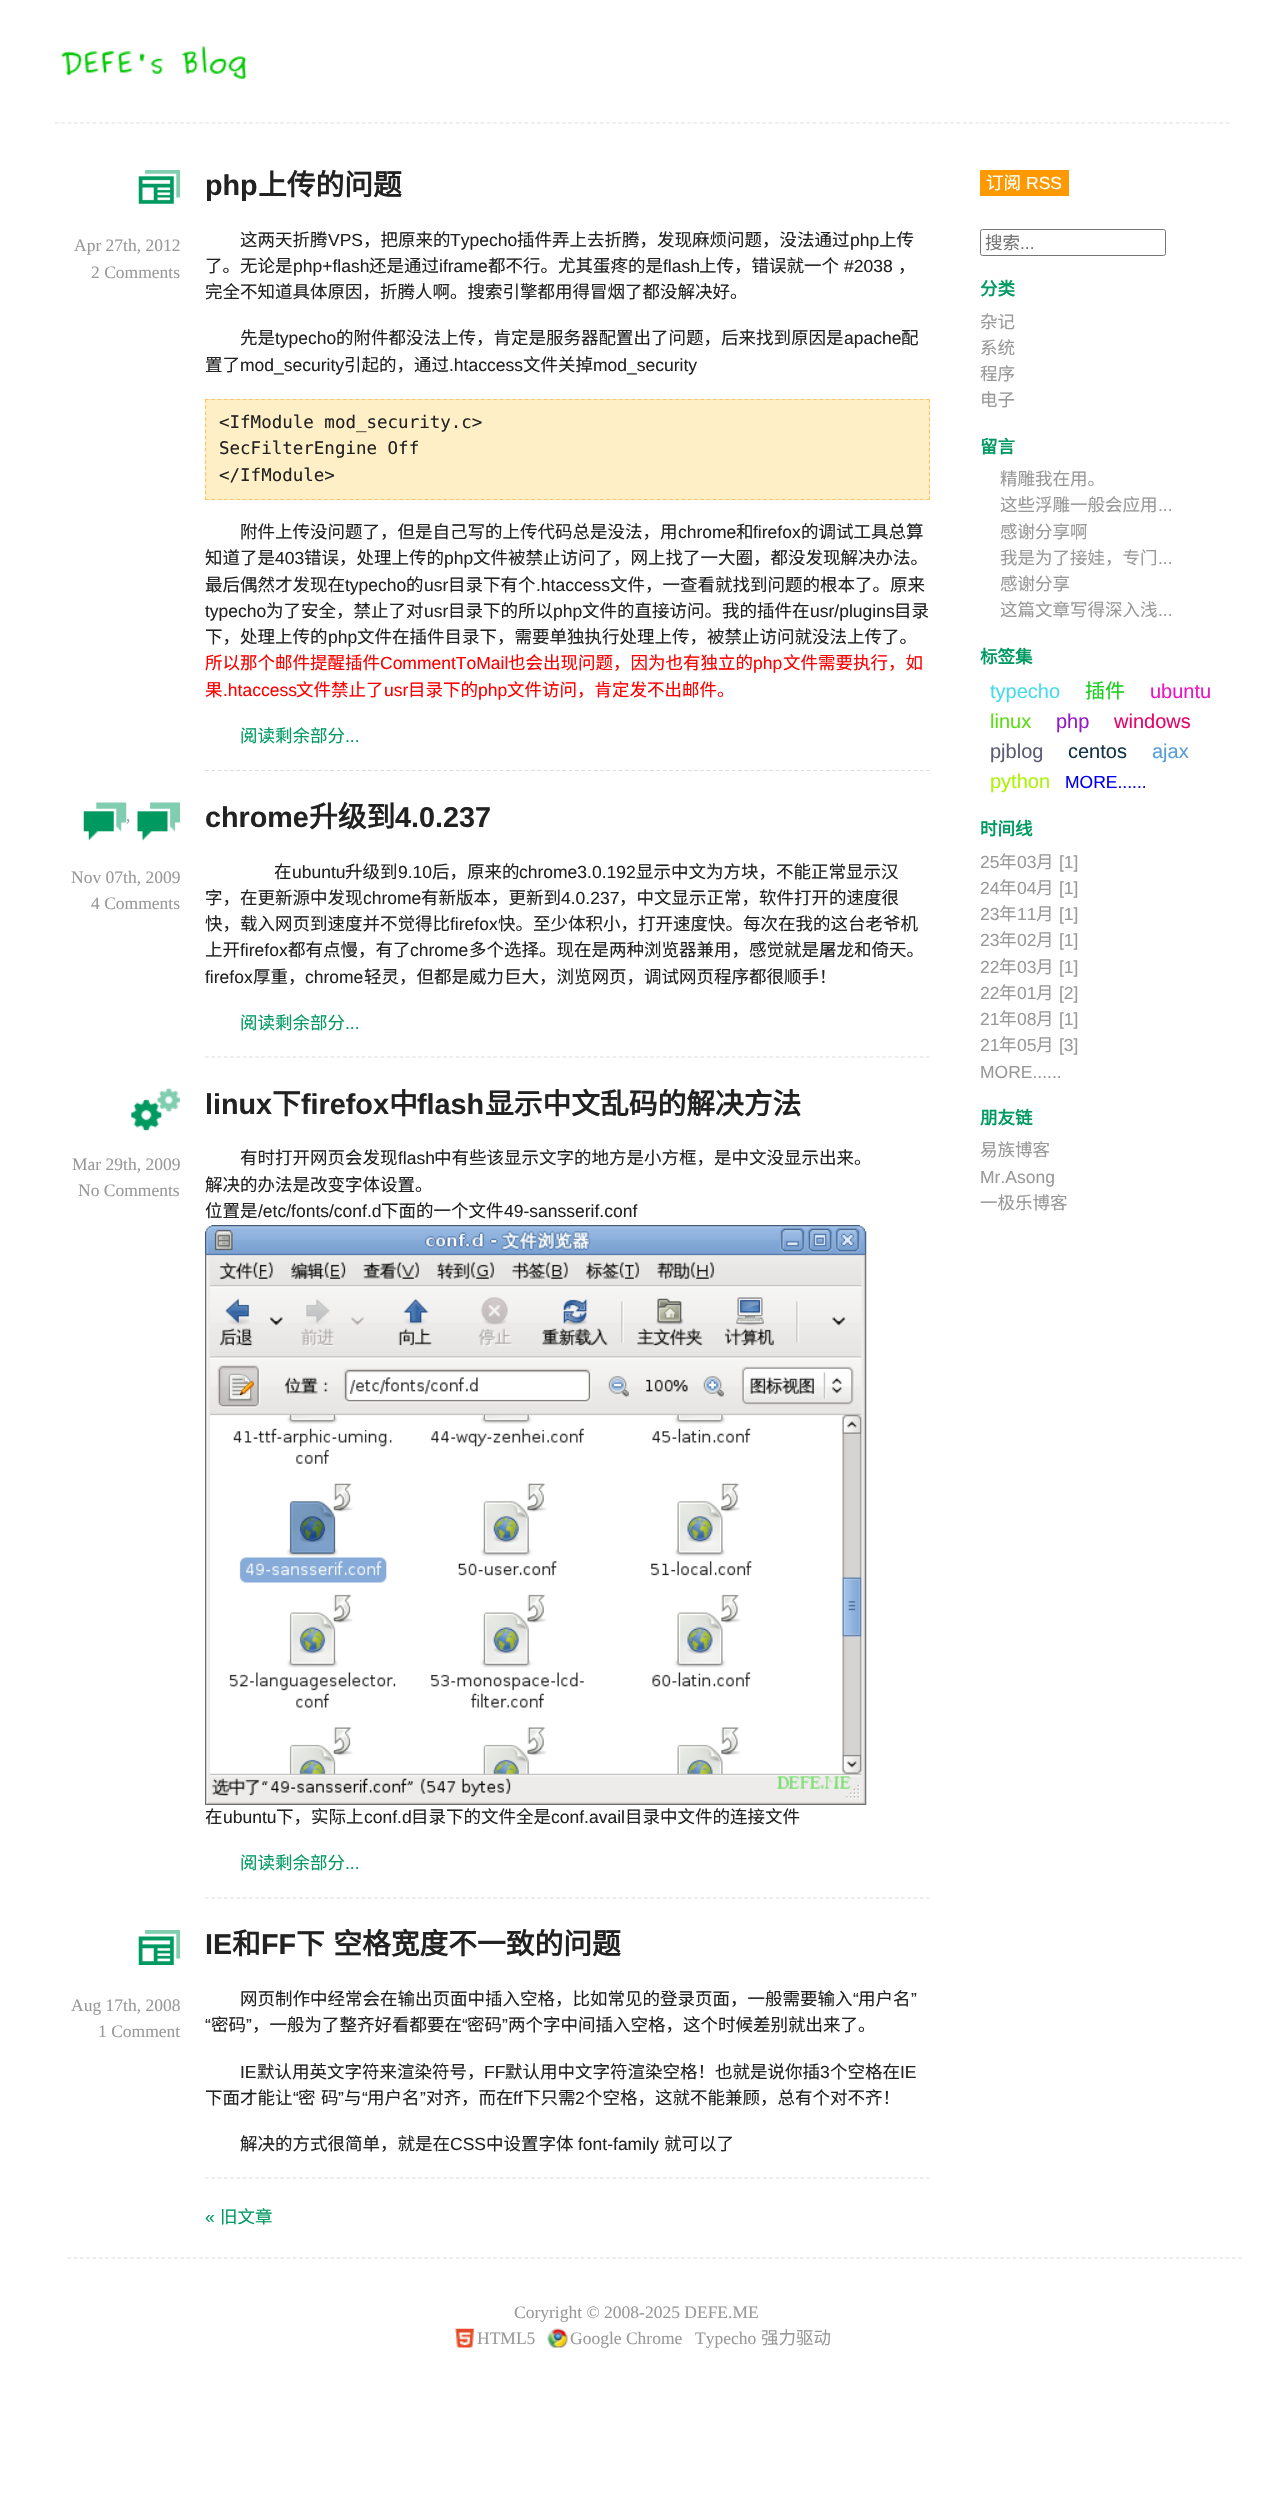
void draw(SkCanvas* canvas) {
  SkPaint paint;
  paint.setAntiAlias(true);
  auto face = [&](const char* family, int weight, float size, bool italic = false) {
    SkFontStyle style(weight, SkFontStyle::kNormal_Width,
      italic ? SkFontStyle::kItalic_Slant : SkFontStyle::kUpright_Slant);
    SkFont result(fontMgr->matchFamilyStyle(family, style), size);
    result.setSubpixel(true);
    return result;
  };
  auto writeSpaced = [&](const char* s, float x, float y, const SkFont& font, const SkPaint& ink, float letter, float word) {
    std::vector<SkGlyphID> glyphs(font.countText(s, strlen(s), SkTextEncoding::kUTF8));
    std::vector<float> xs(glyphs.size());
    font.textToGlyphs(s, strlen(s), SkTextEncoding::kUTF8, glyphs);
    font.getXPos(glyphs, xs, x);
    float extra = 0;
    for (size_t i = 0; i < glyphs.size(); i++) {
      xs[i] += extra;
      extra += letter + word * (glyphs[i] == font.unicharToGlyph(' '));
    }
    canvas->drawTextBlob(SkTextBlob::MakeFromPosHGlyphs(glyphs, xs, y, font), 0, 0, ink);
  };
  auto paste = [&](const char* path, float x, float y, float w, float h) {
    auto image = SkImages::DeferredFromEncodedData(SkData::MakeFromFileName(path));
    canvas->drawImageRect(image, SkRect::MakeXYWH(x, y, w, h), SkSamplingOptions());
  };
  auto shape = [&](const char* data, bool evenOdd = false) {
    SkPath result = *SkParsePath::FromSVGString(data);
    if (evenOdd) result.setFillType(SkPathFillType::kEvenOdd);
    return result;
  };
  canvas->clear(0xffffffff);
  paste("img/1.png", 61, 46, 186, 33);
  paint.setStroke(true);
  paint.setStrokeWidth(1.2f);
  paint.setColor(0xffdddddd);
  paint.setPathEffect(SkDashPathEffect::Make({{3.75f, 2.51f}}, 0));
  canvas->drawPath(shape("M55 123H1230"), paint);
  paint.setPathEffect(nullptr);
  paint.setPathEffect(SkDashPathEffect::Make({{3.75f, 2.52f}}, 0));
  canvas->drawPath(shape("M205 770.5H930"), paint);
  paint.setPathEffect(nullptr);
  paste("img/2.png", 138, 170, 42, 34);
  paint.setStroke(false);
  paint.setColor(0xffffefc6);
  canvas->drawRect(SkRect::MakeXYWH(205, 399, 725, 101), paint);
  paint.setStroke(true);
  paint.setColor(0xffffc463);
  paint.setPathEffect(SkDashPathEffect::Make({{3.75f, 2.52f}}, 0));
  canvas->drawPath(shape("M205 399.5H930"), paint);
  paint.setPathEffect(nullptr);
  canvas->save();
  canvas->clipRect(SkRect::MakeXYWH(55, 164, 875, 2079));
  paint.setPathEffect(SkDashPathEffect::Make({{3.75f, 2.35f}}, 0));
  canvas->drawPath(shape("M929.5 399V500"), paint);
  paint.setPathEffect(nullptr);
  canvas->restore();
  paint.setPathEffect(SkDashPathEffect::Make({{3.75f, 2.52f}}, 0));
  canvas->drawPath(shape("M205 499.5H930"), paint);
  paint.setPathEffect(nullptr);
  paint.setPathEffect(SkDashPathEffect::Make({{3.75f, 2.35f}}, 0));
  canvas->drawPath(shape("M205.5 399V500"), paint);
  paint.setPathEffect(nullptr);
  paint.setColor(0xffdddddd);
  paint.setPathEffect(SkDashPathEffect::Make({{3.75f, 2.52f}}, 0));
  canvas->drawPath(shape("M205 1057H930"), paint);
  paint.setPathEffect(nullptr);
  paste("img/3.png", 83, 802, 44, 39);
  paste("img/4.png", 137, 802, 43, 39);
  paint.setPathEffect(SkDashPathEffect::Make({{3.75f, 2.52f}}, 0));
  canvas->drawPath(shape("M205 1898H930"), paint);
  paint.setPathEffect(nullptr);
  paste("img/5.png", 131, 1088, 49, 43);
  paste("img/6.png", 205, 1225, 662, 580);
  paint.setPathEffect(SkDashPathEffect::Make({{3.75f, 2.52f}}, 0));
  canvas->drawPath(shape("M205 2178H930"), paint);
  paint.setPathEffect(nullptr);
  paste("img/7.png", 138, 1930, 42, 35);
  paint.setStroke(false);
  paint.setColor(0xffff9900);
  canvas->drawRect(SkRect::MakeXYWH(980, 170, 89, 26), paint);
  paint.setStroke(true);
  paint.setStrokeWidth(1);
  paint.setColor(0xff767676);
  canvas->drawRoundRect(SkRect::MakeXYWH(980.5f, 229.5f, 185, 26), 2, 2, paint);
  paint.setStrokeWidth(1.2f);
  paint.setColor(0xffdddddd);
  paint.setPathEffect(SkDashPathEffect::Make({{3.75f, 2.51f}}, 0));
  canvas->drawPath(shape("M67.5 2258H1242.5"), paint);
  paint.setPathEffect(nullptr);
  paste("img/8.png", 455, 2328, 19, 20);
  paste("img/9.png", 547, 2328, 21, 20);
  auto f0 = face("Liberation Sans", 700, 28.75f);
  paint.setStroke(false);
  paint.setColor(0xff222222);
  canvas->drawString("php", 205, 195, f0, paint);
  auto f1 = face("Noto Sans CJK SC", 700, 28.75f);
  canvas->drawString("上传的问题", 258, 195, f1, paint);
  auto f2 = face("Liberation Serif", 400, 17.5f);
  paint.setColor(0xff999999);
  canvas->drawString("Apr 27th, 2012", 74, 251, f2, paint);
  canvas->drawString("2 Comments", 91, 278, f2, paint);
  auto f3 = face("Noto Sans CJK SC", 400, 17.5f);
  paint.setColor(0xff222222);
  canvas->drawString("这两天折腾", 240, 246, f3, paint);
  auto f4 = face("Liberation Sans", 400, 17.5f);
  canvas->drawString("VPS", 328, 246, f4, paint);
  canvas->drawString("，把原来的", 363, 246, f3, paint);
  canvas->drawString("Typecho", 450, 246, f4, paint);
  canvas->drawString("插件弄上去折腾，发现麻烦问题，没法通过", 517, 246, f3, paint);
  canvas->drawString("php", 850, 246, f4, paint);
  canvas->drawString("上传", 879, 246, f3, paint);
  canvas->drawString("了。无论是", 205, 272, f3, paint);
  canvas->drawString("php+flash", 293, 272, f4, paint);
  canvas->drawString("还是通过", 369, 272, f3, paint);
  canvas->drawString("iframe", 439, 272, f4, paint);
  canvas->drawString("都不行。尤其蛋疼的是", 488, 272, f3, paint);
  canvas->drawString("flash", 663, 272, f4, paint);
  canvas->drawString("上传，错误就一个", 699, 272, f3, paint);
  canvas->drawString("#2038", 844, 272, f4, paint);
  {
    const struct { const char* s; float x, y; } items[] = {
      {"，", 898, 272},
      {"完全不知道具体原因，折腾人啊。搜索引擎都用得冒烟了都没解决好。", 205, 298},
      {"先是", 240, 344},
    };
    for (auto [s, x, y] : items) {
      canvas->drawString(s, x, y, f3, paint);
    }
  }
  canvas->drawString("typecho", 275, 344, f4, paint);
  canvas->drawString("的附件都没法上传，肯定是服务器配置出了问题，后来找到原因是", 336, 344, f3, paint);
  canvas->drawString("apache", 844, 344, f4, paint);
  canvas->drawString("配", 901, 344, f3, paint);
  canvas->drawString("置了", 205, 371, f3, paint);
  canvas->drawString("mod_security", 240, 371, f4, paint);
  canvas->drawString("引起的，通过", 344, 371, f3, paint);
  canvas->drawString(".htaccess", 449, 371, f4, paint);
  canvas->drawString("文件关掉", 523, 371, f3, paint);
  canvas->drawString("mod_security", 593, 371, f4, paint);
  auto f5 = face("DejaVu Sans Mono", 400, 17.5f);
  {
    const struct { const char* s; float x, y; } items[] = {
      {"<IfModule mod_security.c>", 219, 428},
      {"SecFilterEngine Off", 219, 454},
      {"</IfModule>", 219, 481},
    };
    for (auto [s, x, y] : items) {
      canvas->drawString(s, x, y, f5, paint);
    }
  }
  canvas->drawString("附件上传没问题了，但是自己写的上传代码总是没法，用", 240, 538, f3, paint);
  canvas->drawString("chrome", 678, 538, f4, paint);
  canvas->drawString("和", 736, 538, f3, paint);
  canvas->drawString("firefox", 753, 538, f4, paint);
  canvas->drawString("的调试工具总算", 801, 538, f3, paint);
  canvas->drawString("知道了是", 205, 564, f3, paint);
  canvas->drawString("403", 275, 564, f4, paint);
  canvas->drawString("错误，处理上传的", 304, 564, f3, paint);
  canvas->drawString("php", 444, 564, f4, paint);
  canvas->drawString("文件被禁止访问了，网上找了一大圈，都没发现解决办法。", 473, 564, f3, paint);
  canvas->drawString("最后偶然才发现在", 205, 591, f3, paint);
  canvas->drawString("typecho", 345, 591, f4, paint);
  canvas->drawString("的", 406, 591, f3, paint);
  canvas->drawString("usr", 424, 591, f4, paint);
  canvas->drawString("目录下有个", 448, 591, f3, paint);
  canvas->drawString(".htaccess", 536, 591, f4, paint);
  canvas->drawString("文件，一查看就找到问题的根本了。原来", 610, 591, f3, paint);
  canvas->drawString("typecho", 205, 617, f4, paint);
  canvas->drawString("为了安全，禁止了对", 266, 617, f3, paint);
  canvas->drawString("usr", 424, 617, f4, paint);
  canvas->drawString("目录下的所以", 448, 617, f3, paint);
  canvas->drawString("php", 553, 617, f4, paint);
  canvas->drawString("文件的直接访问。我的插件在", 582, 617, f3, paint);
  canvas->drawString("usr/plugins", 810, 617, f4, paint);
  canvas->drawString("目录", 894, 617, f3, paint);
  canvas->drawString("下，处理上传的", 205, 643, f3, paint);
  canvas->drawString("php", 328, 643, f4, paint);
  canvas->drawString("文件在插件目录下，需要单独执行处理上传，被禁止访问就没法上传了。", 357, 643, f3, paint);
  paint.setColor(0xffff0000);
  canvas->drawString("所以那个邮件提醒插件", 205, 669, f3, paint);
  canvas->drawString("CommentToMail", 380, 669, f4, paint);
  canvas->drawString("也会出现问题，因为也有独立的", 508, 669, f3, paint);
  canvas->drawString("php", 753, 669, f4, paint);
  canvas->drawString("文件需要执行，如", 783, 669, f3, paint);
  canvas->drawString("果", 205, 696, f3, paint);
  canvas->drawString(".htaccess", 223, 696, f4, paint);
  canvas->drawString("文件禁止了", 296, 696, f3, paint);
  canvas->drawString("usr", 384, 696, f4, paint);
  canvas->drawString("目录下的", 408, 696, f3, paint);
  canvas->drawString("php", 478, 696, f4, paint);
  canvas->drawString("文件访问，肯定发不出邮件。", 507, 696, f3, paint);
  paint.setColor(0xff009a61);
  canvas->drawString("阅读剩余部分", 240, 742, f3, paint);
  canvas->drawString("...", 345, 742, f4, paint);
  paint.setColor(0xff222222);
  canvas->drawString("chrome", 205, 827, f0, paint);
  canvas->drawString("升级到", 309, 827, f1, paint);
  canvas->drawString("4.0.237", 395, 827, f0, paint);
  paint.setColor(0xff999999);
  {
    const struct { const char* s; float x, y; } items[] = {
      {",", 126, 821},
      {"Nov 07th, 2009", 71, 883},
      {"4 Comments", 91, 909},
    };
    for (auto [s, x, y] : items) {
      canvas->drawString(s, x, y, f2, paint);
    }
  }
  paint.setColor(0xff222222);
  canvas->drawString("在", 274, 878, f3, paint);
  canvas->drawString("ubuntu", 292, 878, f4, paint);
  canvas->drawString("升级到", 345, 878, f3, paint);
  canvas->drawString("9.10", 398, 878, f4, paint);
  canvas->drawString("后，原来的", 432, 878, f3, paint);
  canvas->drawString("chrome3.0.192", 519, 878, f4, paint);
  canvas->drawString("显示中文为方块，不能正常显示汉", 636, 878, f3, paint);
  canvas->drawString("字，在更新源中发现", 205, 904, f3, paint);
  canvas->drawString("chrome", 363, 904, f4, paint);
  canvas->drawString("有新版本，更新到", 421, 904, f3, paint);
  canvas->drawString("4.0.237", 561, 904, f4, paint);
  canvas->drawString("，中文显示正常，软件打开的速度很", 619, 904, f3, paint);
  canvas->drawString("快，载入网页到速度并不觉得比", 205, 930, f3, paint);
  canvas->drawString("firefox", 450, 930, f4, paint);
  canvas->drawString("快。至少体积小，打开速度快。每次在我的这台老爷机", 498, 930, f3, paint);
  canvas->drawString("上开", 205, 956, f3, paint);
  canvas->drawString("firefox", 240, 956, f4, paint);
  canvas->drawString("都有点慢，有了", 288, 956, f3, paint);
  canvas->drawString("chrome", 410, 956, f4, paint);
  canvas->drawString("多个选择。现在是两种浏览器兼用，感觉就是屠龙和倚天。", 469, 956, f3, paint);
  canvas->drawString("firefox", 205, 983, f4, paint);
  canvas->drawString("厚重，", 253, 983, f3, paint);
  canvas->drawString("chrome", 305, 983, f4, paint);
  canvas->drawString("轻灵，但都是威力巨大，浏览网页，调试网页程序都很顺手！", 364, 983, f3, paint);
  paint.setColor(0xff009a61);
  canvas->drawString("阅读剩余部分", 240, 1029, f3, paint);
  canvas->drawString("...", 345, 1029, f4, paint);
  paint.setColor(0xff222222);
  canvas->drawString("linux", 205, 1114, f0, paint);
  canvas->drawString("下", 272, 1114, f1, paint);
  canvas->drawString("firefox", 301, 1114, f0, paint);
  canvas->drawString("中", 389, 1114, f1, paint);
  canvas->drawString("flash", 417, 1114, f0, paint);
  canvas->drawString("显示中文乱码的解决方法", 485, 1114, f1, paint);
  paint.setColor(0xff999999);
  canvas->drawString("Mar 29th, 2009", 72, 1170, f2, paint);
  canvas->drawString("No Comments", 78, 1196, f2, paint);
  paint.setColor(0xff222222);
  canvas->drawString("有时打开网页会发现", 240, 1164, f3, paint);
  canvas->drawString("flash", 398, 1164, f4, paint);
  {
    const struct { const char* s; float x, y; } items[] = {
      {"中有些该显示文字的地方是小方框，是中文没显示出来。", 434, 1164},
      {"解决的办法是改变字体设置。", 205, 1191},
      {"位置是", 205, 1217},
    };
    for (auto [s, x, y] : items) {
      canvas->drawString(s, x, y, f3, paint);
    }
  }
  canvas->drawString("/etc/fonts/conf.d", 258, 1217, f4, paint);
  canvas->drawString("下面的一个文件", 381, 1217, f3, paint);
  canvas->drawString("49-sansserif.conf", 504, 1217, f4, paint);
  canvas->drawString("在", 205, 1823, f3, paint);
  canvas->drawString("ubuntu", 223, 1823, f4, paint);
  canvas->drawString("下，实际上", 276, 1823, f3, paint);
  canvas->drawString("conf.d", 364, 1823, f4, paint);
  canvas->drawString("目录下的文件全是", 411, 1823, f3, paint);
  canvas->drawString("conf.avail", 551, 1823, f4, paint);
  canvas->drawString("目录中文件的连接文件", 625, 1823, f3, paint);
  paint.setColor(0xff009a61);
  canvas->drawString("阅读剩余部分", 240, 1869, f3, paint);
  canvas->drawString("...", 345, 1869, f4, paint);
  paint.setColor(0xff222222);
  canvas->drawString("IE", 205, 1954, f0, paint);
  canvas->drawString("和", 232, 1954, f1, paint);
  canvas->drawString("FF", 261, 1954, f0, paint);
  writeSpaced("下 空格宽度不一致的问题", 296, 1954, f1, paint, 0, 2);
  paint.setColor(0xff999999);
  canvas->drawString("Aug 17th, 2008", 71, 2011, f2, paint);
  canvas->drawString("1 Comment", 98, 2037, f2, paint);
  paint.setColor(0xff222222);
  canvas->drawString("网页制作中经常会在输出页面中插入空格，比如常见的登录页面，一般需要输入", 240, 2005, f3, paint);
  canvas->drawString("“", 853, 2005, f4, paint);
  canvas->drawString("用户名", 858, 2005, f3, paint);
  canvas->drawString("”", 911, 2005, f4, paint);
  canvas->drawString("“", 205, 2031, f4, paint);
  canvas->drawString("密码", 211, 2031, f3, paint);
  canvas->drawString("”", 246, 2031, f4, paint);
  canvas->drawString("，一般为了整齐好看都要在", 252, 2031, f3, paint);
  canvas->drawString("“", 462, 2031, f4, paint);
  canvas->drawString("密码", 467, 2031, f3, paint);
  canvas->drawString("”", 502, 2031, f4, paint);
  canvas->drawString("两个字中间插入空格，这个时候差别就出来了。", 508, 2031, f3, paint);
  canvas->drawString("IE", 240, 2078, f4, paint);
  canvas->drawString("默认用英文字符来渲染符号，", 257, 2078, f3, paint);
  canvas->drawString("FF", 484, 2078, f4, paint);
  canvas->drawString("默认用中文字符渲染空格！也就是说你插", 505, 2078, f3, paint);
  canvas->drawString("3", 820, 2078, f4, paint);
  canvas->drawString("个空格在", 830, 2078, f3, paint);
  canvas->drawString("IE", 900, 2078, f4, paint);
  canvas->drawString("下面才能让", 205, 2104, f3, paint);
  canvas->drawString("“", 293, 2104, f4, paint);
  canvas->drawString("密", 298, 2104, f3, paint);
  canvas->drawString("码", 321, 2104, f3, paint);
  canvas->drawString("”", 338, 2104, f4, paint);
  canvas->drawString("与", 344, 2104, f3, paint);
  canvas->drawString("“", 362, 2104, f4, paint);
  canvas->drawString("用户名", 367, 2104, f3, paint);
  canvas->drawString("”", 420, 2104, f4, paint);
  canvas->drawString("对齐，而在", 426, 2104, f3, paint);
  canvas->drawString("ff", 513, 2104, f4, paint);
  canvas->drawString("下只需", 523, 2104, f3, paint);
  canvas->drawString("2", 575, 2104, f4, paint);
  canvas->drawString("个空格，这就不能兼顾，总有个对不齐！", 585, 2104, f3, paint);
  canvas->drawString("解决的方式很简单，就是在", 240, 2150, f3, paint);
  canvas->drawString("CSS", 450, 2150, f4, paint);
  canvas->drawString("中设置字体", 486, 2150, f3, paint);
  canvas->drawString("font-family", 578, 2150, f4, paint);
  canvas->drawString("就可以了", 664, 2150, f3, paint);
  paint.setColor(0xff009a61);
  canvas->drawString("«", 205, 2223, f4, paint);
  canvas->drawString("旧文章", 220, 2223, f3, paint);
  paint.setColor(0xffffffff);
  canvas->drawString("订阅", 986, 189, f3, paint);
  canvas->drawString("RSS", 1026, 189, f4, paint);
  paint.setColor(0xff757575);
  canvas->drawString("搜索", 985, 249, f3, paint);
  canvas->drawString("...", 1020, 249, f4, paint);
  auto f6 = face("Noto Sans CJK SC", 700, 17.5f);
  paint.setColor(0xff009a61);
  canvas->drawString("分类", 980, 295, f6, paint);
  paint.setColor(0xff999999);
  {
    const struct { const char* s; float x, y; } items[] = {
      {"杂记", 980, 328},
      {"系统", 980, 354},
      {"程序", 980, 380},
      {"电子", 980, 406},
    };
    for (auto [s, x, y] : items) {
      canvas->drawString(s, x, y, f3, paint);
    }
  }
  paint.setColor(0xff009a61);
  canvas->drawString("留言", 980, 453, f6, paint);
  paint.setColor(0xff999999);
  canvas->drawString("精雕我在用。", 1000, 485, f3, paint);
  canvas->drawString("这些浮雕一般会应用", 1000, 511, f3, paint);
  canvas->drawString("...", 1158, 511, f4, paint);
  canvas->drawString("感谢分享啊", 1000, 538, f3, paint);
  canvas->drawString("我是为了接娃，专门", 1000, 564, f3, paint);
  canvas->drawString("...", 1158, 564, f4, paint);
  canvas->drawString("感谢分享", 1000, 590, f3, paint);
  canvas->drawString("这篇文章写得深入浅", 1000, 616, f3, paint);
  canvas->drawString("...", 1158, 616, f4, paint);
  paint.setColor(0xff009a61);
  canvas->drawString("标签集", 980, 663, f6, paint);
  auto f7 = face("Liberation Sans", 400, 20);
  paint.setColor(0xff46dbeb);
  canvas->drawString("typecho", 990, 698, f7, paint);
  auto f8 = face("Noto Sans CJK SC", 400, 20);
  paint.setColor(0xff17cf1c);
  canvas->drawString("插件", 1085, 698, f8, paint);
  paint.setColor(0xffea13c7);
  canvas->drawString("ubuntu", 1150, 698, f7, paint);
  paint.setColor(0xff5cde15);
  canvas->drawString("linux", 990, 728, f7, paint);
  paint.setColor(0xff941cc4);
  canvas->drawString("php", 1056, 728, f7, paint);
  paint.setColor(0xffe7066a);
  canvas->drawString("windows", 1114, 728, f7, paint);
  paint.setColor(0xff5c5c76);
  canvas->drawString("pjblog", 990, 758, f7, paint);
  paint.setColor(0xff113444);
  canvas->drawString("centos", 1068, 758, f7, paint);
  paint.setColor(0xff599dd6);
  canvas->drawString("ajax", 1152, 758, f7, paint);
  paint.setColor(0xffaef206);
  canvas->drawString("python", 990, 788, f7, paint);
  paint.setColor(0xff0000ee);
  canvas->drawString("MORE......", 1065, 788, f4, paint);
  paint.setColor(0xff009a61);
  canvas->drawString("时间线", 980, 835, f6, paint);
  paint.setColor(0xff999999);
  canvas->drawString("25", 980, 868, f4, paint);
  canvas->drawString("年", 999, 868, f3, paint);
  canvas->drawString("03", 1017, 868, f4, paint);
  canvas->drawString("月", 1036, 868, f3, paint);
  canvas->drawString("[1]", 1059, 868, f4, paint);
  canvas->drawString("24", 980, 894, f4, paint);
  canvas->drawString("年", 999, 894, f3, paint);
  canvas->drawString("04", 1017, 894, f4, paint);
  canvas->drawString("月", 1036, 894, f3, paint);
  canvas->drawString("[1]", 1059, 894, f4, paint);
  canvas->drawString("23", 980, 920, f4, paint);
  canvas->drawString("年", 999, 920, f3, paint);
  canvas->drawString("11", 1017, 920, f4, paint);
  canvas->drawString("月", 1036, 920, f3, paint);
  canvas->drawString("[1]", 1059, 920, f4, paint);
  canvas->drawString("23", 980, 946, f4, paint);
  canvas->drawString("年", 999, 946, f3, paint);
  canvas->drawString("02", 1017, 946, f4, paint);
  canvas->drawString("月", 1036, 946, f3, paint);
  canvas->drawString("[1]", 1059, 946, f4, paint);
  canvas->drawString("22", 980, 973, f4, paint);
  canvas->drawString("年", 999, 973, f3, paint);
  canvas->drawString("03", 1017, 973, f4, paint);
  canvas->drawString("月", 1036, 973, f3, paint);
  canvas->drawString("[1]", 1059, 973, f4, paint);
  canvas->drawString("22", 980, 999, f4, paint);
  canvas->drawString("年", 999, 999, f3, paint);
  canvas->drawString("01", 1017, 999, f4, paint);
  canvas->drawString("月", 1036, 999, f3, paint);
  canvas->drawString("[2]", 1059, 999, f4, paint);
  canvas->drawString("21", 980, 1025, f4, paint);
  canvas->drawString("年", 999, 1025, f3, paint);
  canvas->drawString("08", 1017, 1025, f4, paint);
  canvas->drawString("月", 1036, 1025, f3, paint);
  canvas->drawString("[1]", 1059, 1025, f4, paint);
  canvas->drawString("21", 980, 1051, f4, paint);
  canvas->drawString("年", 999, 1051, f3, paint);
  canvas->drawString("05", 1017, 1051, f4, paint);
  canvas->drawString("月", 1036, 1051, f3, paint);
  canvas->drawString("[3]", 1059, 1051, f4, paint);
  canvas->drawString("MORE......", 980, 1078, f4, paint);
  paint.setColor(0xff009a61);
  canvas->drawString("朋友链", 980, 1124, f6, paint);
  paint.setColor(0xff999999);
  canvas->drawString("易族博客", 980, 1156, f3, paint);
  canvas->drawString("Mr.Asong", 980, 1183, f4, paint);
  canvas->drawString("一极乐博客", 980, 1209, f3, paint);
  {
    const struct { const char* s; float x, y; } items[] = {
      {"Coryright © 2008-2025 DEFE.ME", 514, 2318},
      {"HTML5", 477, 2344},
      {"Google Chrome", 570, 2344},
      {"Typecho", 695, 2344},
    };
    for (auto [s, x, y] : items) {
      canvas->drawString(s, x, y, f2, paint);
    }
  }
  canvas->drawString("强力驱动", 761, 2344, f3, paint);
}
